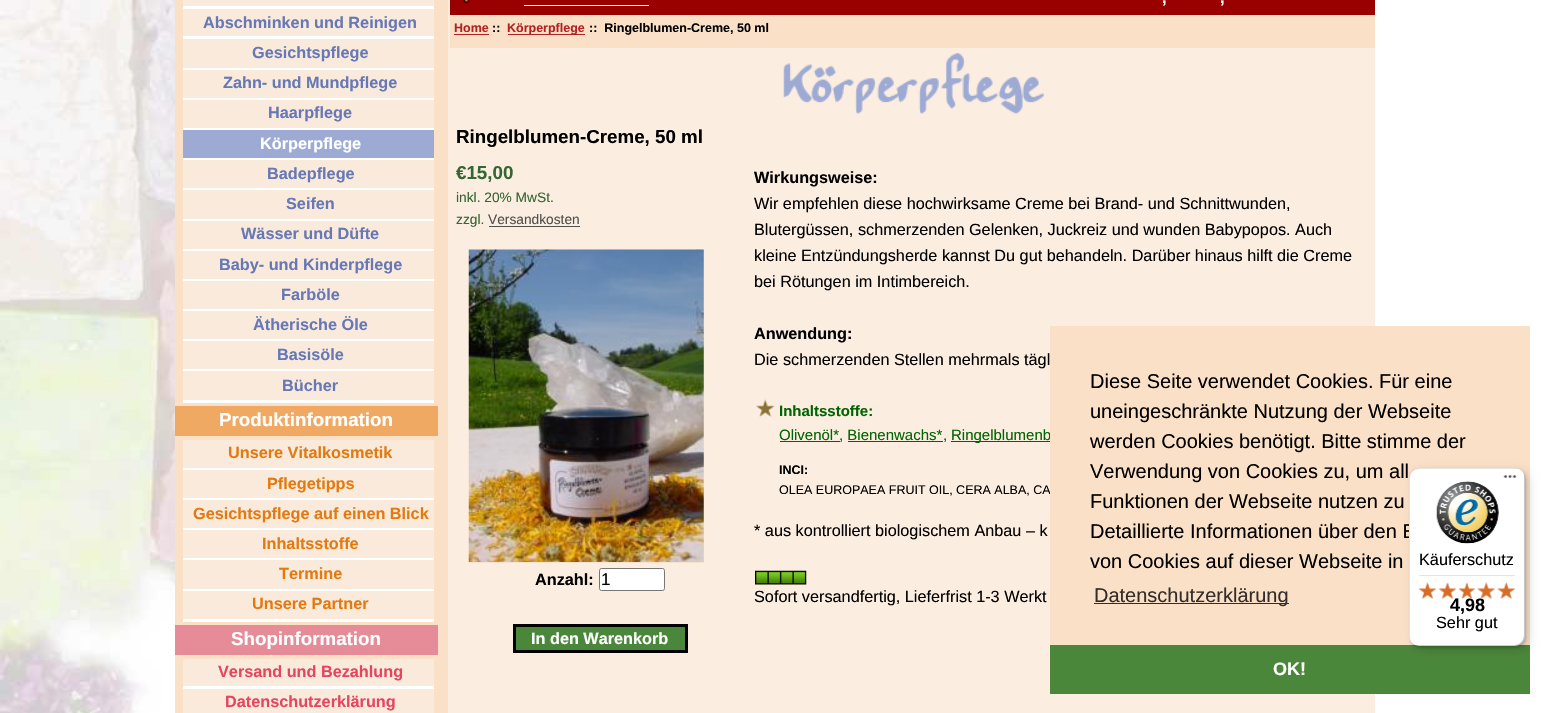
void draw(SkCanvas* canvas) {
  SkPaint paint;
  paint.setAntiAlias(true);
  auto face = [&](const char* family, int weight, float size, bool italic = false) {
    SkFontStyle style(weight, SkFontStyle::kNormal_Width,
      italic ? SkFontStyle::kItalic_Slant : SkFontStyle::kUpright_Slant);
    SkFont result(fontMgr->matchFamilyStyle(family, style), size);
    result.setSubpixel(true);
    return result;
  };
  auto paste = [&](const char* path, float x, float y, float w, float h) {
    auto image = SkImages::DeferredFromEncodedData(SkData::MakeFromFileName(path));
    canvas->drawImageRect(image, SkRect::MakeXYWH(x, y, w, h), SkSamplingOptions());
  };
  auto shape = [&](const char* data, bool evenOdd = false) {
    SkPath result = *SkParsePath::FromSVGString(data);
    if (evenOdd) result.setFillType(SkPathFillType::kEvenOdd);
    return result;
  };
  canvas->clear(0xffffffff);
  paste("img/1.png", 0, 0, 175, 713);
  {
    const struct { float x, y, w, h; SkColor color; } items[] = {
      {175, 0, 273, 713, 0xfffae0c6},
      {448, 0, 2, 713, 0xfffcede1},
      {183, 0, 251, 6, 0xfffaeadc},
      {183, 6, 251, 3, 0xffffffff},
      {183, 9, 251, 27, 0xfffaeadc},
      {183, 36, 251, 3, 0xffffffff},
      {183, 39, 251, 29, 0xfffaeadc},
      {183, 68, 251, 2, 0xffffffff},
      {183, 70, 251, 28, 0xfffaeadc},
      {183, 98, 251, 2, 0xffffffff},
      {183, 100, 251, 28, 0xfffaeadc},
      {183, 128, 251, 2, 0xffffffff},
      {183, 130, 251, 28, 0xff9dabd4},
      {183, 158, 251, 2, 0xffffffff},
      {183, 160, 251, 28, 0xfffaeadc},
      {183, 188, 251, 2, 0xffffffff},
      {183, 190, 251, 29, 0xfffaeadc},
      {183, 219, 251, 2, 0xffffffff},
      {183, 221, 251, 28, 0xfffaeadc},
      {183, 249, 251, 2, 0xffffffff},
      {183, 251, 251, 28, 0xfffaeadc},
      {183, 279, 251, 2, 0xffffffff},
      {183, 281, 251, 28, 0xfffaeadc},
      {183, 309, 251, 2, 0xffffffff},
      {183, 311, 251, 28, 0xfffaeadc},
      {183, 339, 251, 2, 0xffffffff},
      {183, 341, 251, 28, 0xfffaeadc},
      {183, 369, 251, 2, 0xffffffff},
      {183, 371, 251, 29, 0xfffaeadc},
      {183, 400, 251, 3, 0xffffffff},
      {175, 406, 263, 30, 0xffefa963},
      {183, 440, 251, 28, 0xfffaeadc},
      {183, 468, 251, 2, 0xffffffff},
      {183, 470, 251, 28, 0xfffaeadc},
      {183, 498, 251, 2, 0xffffffff},
      {183, 500, 251, 28, 0xfffaeadc},
      {183, 528, 251, 2, 0xffffffff},
      {183, 530, 251, 28, 0xfffaeadc},
      {183, 558, 251, 2, 0xffffffff},
      {183, 560, 251, 29, 0xfffaeadc},
      {183, 589, 251, 2, 0xffffffff},
      {183, 591, 251, 28, 0xfffaeadc},
      {183, 619, 251, 3, 0xffffffff},
      {175, 625, 263, 30, 0xffe68b98},
      {183, 659, 251, 27, 0xfffaeadc},
      {183, 686, 251, 3, 0xffffffff},
      {183, 689, 251, 24, 0xfffaeadc},
      {450, 48, 925, 665, 0xfffcede1},
      {450, 0, 925, 15, 0xff990000},
    };
    for (auto [x, y, w, h, color] : items) {
      paint.setColor(color);
      canvas->drawRect(SkRect::MakeXYWH(x, y, w, h), paint);
    }
  }
  paste("img/2.png", 463, 0, 6, 4);
  {
    const struct { float x, y, w, h; SkColor color; } items[] = {
      {524, 5, 125, 1, 0xffffffff},
      {450, 15, 925, 33, 0xfffae0c6},
      {454, 34, 35, 1, 0xffb22222},
      {508, 34, 77, 1, 0xffb22222},
    };
    for (auto [x, y, w, h, color] : items) {
      paint.setColor(color);
      canvas->drawRect(SkRect::MakeXYWH(x, y, w, h), paint);
    }
  }
  paste("img/3.png", 783, 53, 261, 61);
  paint.setColor(0xff4f4f4f);
  canvas->drawRect(SkRect::MakeXYWH(489, 226, 91, 1), paint);
  paste("img/4.png", 756, 399, 18, 18);
  {
    const struct { float x, y, w, h; SkColor color; } items[] = {
      {780, 441, 60, 1, 0xff006400},
      {951, 441, 99, 1, 0xff006400},
      {848, 441, 95, 1, 0xff006400},
    };
    for (auto [x, y, w, h, color] : items) {
      paint.setColor(color);
      canvas->drawRect(SkRect::MakeXYWH(x, y, w, h), paint);
    }
  }
  paste("img/5.png", 755, 570, 52, 15);
  paste("img/6.png", 468, 249, 234, 310);
  paint.setColor(0xfff5e3cb);
  canvas->drawRect(SkRect::MakeXYWH(469, 250, 235, 313), paint);
  paste("img/7.png", 468, 249, 236, 313);
  paint.setColor(0xffffffff);
  canvas->drawRoundRect(SkRect::MakeXYWH(599.5f, 568.5f, 65, 22), 2, 2, paint);
  paint.setStroke(true);
  paint.setStrokeWidth(1);
  paint.setColor(0xff767676);
  canvas->drawRoundRect(SkRect::MakeXYWH(599.5f, 568.5f, 65, 22), 2, 2, paint);
  paint.setStroke(false);
  paint.setColor(0xff4b873b);
  canvas->drawRect(SkRect::MakeXYWH(514.5f, 625.5f, 172, 26), paint);
  paint.setStroke(true);
  paint.setStrokeWidth(3);
  paint.setColor(0xff000000);
  canvas->drawRect(SkRect::MakeXYWH(514.5f, 625.5f, 172, 26), paint);
  paint.setStroke(false);
  paint.setColor(0xff4b873b);
  canvas->drawRect(SkRect::MakeXYWH(1050, 645, 480, 49), paint);
  auto f0 = face("Liberation Sans", 700, 16.25f);
  paint.setColor(0xff6678b5);
  {
    const struct { const char* s; float x, y; } items[] = {
      {"Abschminken und Reinigen", 203, 28},
      {"Gesichtspflege", 252, 58},
      {"Zahn- und Mundpflege", 223, 88},
      {"Haarpflege", 268, 118},
    };
    for (auto [s, x, y] : items) {
      canvas->drawString(s, x, y, f0, paint);
    }
  }
  paint.setColor(0xffffffff);
  canvas->drawString("Körperpflege", 260, 149, f0, paint);
  paint.setColor(0xff6678b5);
  {
    const struct { const char* s; float x, y; } items[] = {
      {"Badepflege", 267, 179},
      {"Seifen", 286, 209},
      {"Wässer und Düfte", 241, 239},
      {"Baby- und Kinderpflege", 219, 270},
      {"Farböle", 281, 300},
      {"Ätherische Öle", 253, 330},
      {"Basisöle", 277, 360},
      {"Bücher", 282, 391},
    };
    for (auto [s, x, y] : items) {
      canvas->drawString(s, x, y, f0, paint);
    }
  }
  auto f1 = face("Liberation Sans", 700, 18.75f);
  paint.setColor(0xffffffff);
  canvas->drawString("Produktinformation", 219, 426, f1, paint);
  paint.setColor(0xffe47a0f);
  {
    const struct { const char* s; float x, y; } items[] = {
      {"Unsere Vitalkosmetik", 228, 458},
      {"Pflegetipps", 267, 489},
      {"Gesichtspflege auf einen Blick", 193, 519},
      {"Inhaltsstoffe", 262, 549},
      {"Termine", 279, 579},
      {"Unsere Partner", 252, 609},
    };
    for (auto [s, x, y] : items) {
      canvas->drawString(s, x, y, f0, paint);
    }
  }
  paint.setColor(0xffffffff);
  canvas->drawString("Shopinformation", 231, 645, f1, paint);
  paint.setColor(0xffe5455d);
  canvas->drawString("Versand und Bezahlung", 218, 677, f0, paint);
  canvas->drawString("Datenschutzerklärung", 225, 707, f0, paint);
  paint.setColor(0xffffffff);
  canvas->drawString(",", 1162, 3, f0, paint);
  canvas->drawString(",", 1220, 3, f0, paint);
  auto f2 = face("Liberation Sans", 700, 12.5f);
  paint.setColor(0xffb22222);
  canvas->drawString("Home", 454, 32, f2, paint);
  paint.setColor(0xff000000);
  canvas->drawString("::", 492, 32, f2, paint);
  paint.setColor(0xffb22222);
  canvas->drawString("Körperpflege", 507, 32, f2, paint);
  paint.setColor(0xff000000);
  canvas->drawString("::  Ringelblumen-Creme, 50 ml", 589, 32, f2, paint);
  canvas->drawString("Ringelblumen-Creme, 50 ml", 456, 143, f1, paint);
  paint.setColor(0xff336633);
  canvas->drawString("€15,00", 456, 179, f1, paint);
  auto f3 = face("Liberation Sans", 400, 13.75f);
  canvas->drawString("inkl. 20% MwSt.", 456, 202, f3, paint);
  canvas->drawString("zzgl.", 456, 224, f3, paint);
  paint.setColor(0xff4f4f4f);
  canvas->drawString("Versandkosten", 488, 224, f3, paint);
  paint.setColor(0xff000000);
  canvas->drawString("Wirkungsweise:", 754, 183, f0, paint);
  auto f4 = face("Liberation Sans", 400, 16.25f);
  {
    const struct { const char* s; float x, y; } items[] = {
      {"Wir empfehlen diese hochwirksame Creme bei Brand- und Schnittwunden,", 754, 209},
      {"Blutergüssen, schmerzenden Gelenken, Juckreiz und wunden Babypopos. Auch", 754, 235},
      {"kleine Entzündungsherde kannst Du gut behandeln. Darüber hinaus hilft die Creme", 754, 261},
      {"bei Rötungen im Intimbereich.", 754, 287},
    };
    for (auto [s, x, y] : items) {
      canvas->drawString(s, x, y, f4, paint);
    }
  }
  canvas->drawString("Anwendung:", 754, 339, f0, paint);
  canvas->drawString("Die schmerzenden Stellen mehrmals tägl", 754, 365, f4, paint);
  auto f5 = face("Liberation Sans", 700, 15);
  paint.setColor(0xff006400);
  canvas->drawString("Inhaltsstoffe:", 779, 416, f5, paint);
  auto f6 = face("Liberation Sans", 400, 15);
  {
    const struct { const char* s; float x, y; } items[] = {
      {"Olivenöl*", 779, 440},
      {", Bienenwachs*", 839, 440},
      {",", 943, 440},
      {"Ringelblumenb", 951, 440},
    };
    for (auto [s, x, y] : items) {
      canvas->drawString(s, x, y, f6, paint);
    }
  }
  paint.setColor(0xff000000);
  canvas->drawString("INCI:", 779, 474, f2, paint);
  auto f7 = face("Liberation Sans", 400, 12.5f);
  canvas->drawString("OLEA EUROPAEA FRUIT OIL, CERA ALBA, CA", 779, 494, f7, paint);
  canvas->drawString("* aus kontrolliert biologischem Anbau – k", 754, 536, f4, paint);
  canvas->drawString("Sofort versandfertig, Lieferfrist 1-3 Werkt", 754, 602, f4, paint);
  canvas->drawString("Anzahl:", 535, 585, f0, paint);
  auto f8 = face("Liberation Sans", 400, 17);
  canvas->drawString("1", 601, 585, f8, paint);
  paint.setColor(0xffffffff);
  canvas->drawString("In den Warenkorb", 531, 644, f0, paint);
  paint.setColor(0xfffae0c6);
  canvas->drawRect(SkRect::MakeXYWH(1050, 326, 480, 319), paint);
  auto f9 = face("Liberation Sans", 400, 20);
  paint.setColor(0xff000000);
  {
    const struct { const char* s; float x, y; } items[] = {
      {"Diese Seite verwendet Cookies. Für eine", 1090, 388},
      {"uneingeschränkte Nutzung der Webseite", 1090, 418},
      {"werden Cookies benötigt. Bitte stimme der", 1090, 448},
      {"Verwendung von Cookies zu, um all", 1090, 478},
      {"Funktionen der Webseite nutzen zu", 1090, 508},
      {"Detaillierte Informationen über den E", 1090, 538},
      {"von Cookies auf dieser Webseite in", 1090, 568},
    };
    for (auto [s, x, y] : items) {
      canvas->drawString(s, x, y, f9, paint);
    }
  }
  paint.setColor(0xff322d28);
  canvas->drawRect(SkRect::MakeXYWH(1094, 603, 195, 1), paint);
  canvas->drawString("Datenschutzerklärung", 1094, 602, f9, paint);
  auto f10 = face("Liberation Sans", 700, 18);
  paint.setColor(0xffffffff);
  canvas->drawString("OK!", 1273, 675, f10, paint);
  paint.setColor(0x26000000);
  paint.setMaskFilter(SkMaskFilter::MakeBlur(kNormal_SkBlurStyle, 5));
  canvas->drawRoundRect(SkRect::MakeXYWH(1413, 471, 116, 179), 10, 10, paint);
  paint.setMaskFilter(nullptr);
  paint.setMaskFilter(SkMaskFilter::MakeBlur(kNormal_SkBlurStyle, 1));
  canvas->drawRoundRect(SkRect::MakeXYWH(1410, 469, 116, 179), 10, 10, paint);
  paint.setMaskFilter(nullptr);
  paint.setColor(0xffffffff);
  canvas->drawRoundRect(SkRect::MakeXYWH(1409, 468, 116, 178), 10, 10, paint);
  paint.setColor(0x1a000000);
  canvas->drawPath(shape("M1420 469H1516C1518 469 1520 469 1521 470C1520 469 1517 468 1515 468H1419C1413 468 1409 472 1409 478V636C1409 638 1410 640 1411 642L1410 638V479C1410 473 1414 469 1420 469Z"), paint);
  paint.setColor(0x33000000);
  canvas->drawPath(shape("M1413 644C1414 645 1417 646 1419 646H1515C1521 646 1525 642 1525 636V478C1525 476 1524 474 1523 472C1524 473 1524 475 1524 476V635C1524 641 1519 645 1514 645H1418C1416 645 1414 645 1413 644Z"), paint);
  paint.setColor(0x33323232);
  canvas->drawPath(shape("M1514 646H1515C1521 646 1525 642 1525 636V478C1525 476 1524 473 1523 472C1524 473 1524 475 1524 477V636C1524 641 1520 646 1514 646Z"), paint);
  paint.setColor(0x4dffffff);
  canvas->drawPath(shape("M1514 646H1515C1521 646 1525 642 1525 636V478C1525 476 1524 473 1523 472C1524 473 1524 475 1524 477V636C1524 641 1520 646 1514 646Z"), paint);
  paste("img/8.png", 1503, 475, 14, 3);
  paste("img/9.png", 1436, 481, 63, 63);
  paint.setColor(0xff000000);
  canvas->drawString("Käuferschutz", 1419, 565, f4, paint);
  paint.setColor(0xffe5e5e5);
  canvas->drawRect(SkRect::MakeXYWH(1419, 575, 96, 1), paint);
  paste("img/15.png", 1419, 583, 17, 16);
  paste("img/10.png", 1418, 582, 18, 17);
  paste("img/19.png", 1497, 583, 18, 16);
  paste("img/14.png", 1497, 582, 18, 17);
  paint.setColor(0xff000000);
  canvas->drawString("4,98", 1450, 611, f10, paint);
  paste("img/18.png", 1477, 582, 18, 17);
  paste("img/13.png", 1477, 582, 18, 17);
  paste("img/17.png", 1459, 583, 16, 16);
  paste("img/12.png", 1458, 582, 17, 17);
  paste("img/16.png", 1439, 583, 17, 16);
  paste("img/11.png", 1438, 582, 19, 17);
  canvas->drawString("Sehr gut", 1436, 628, f4, paint);
}
